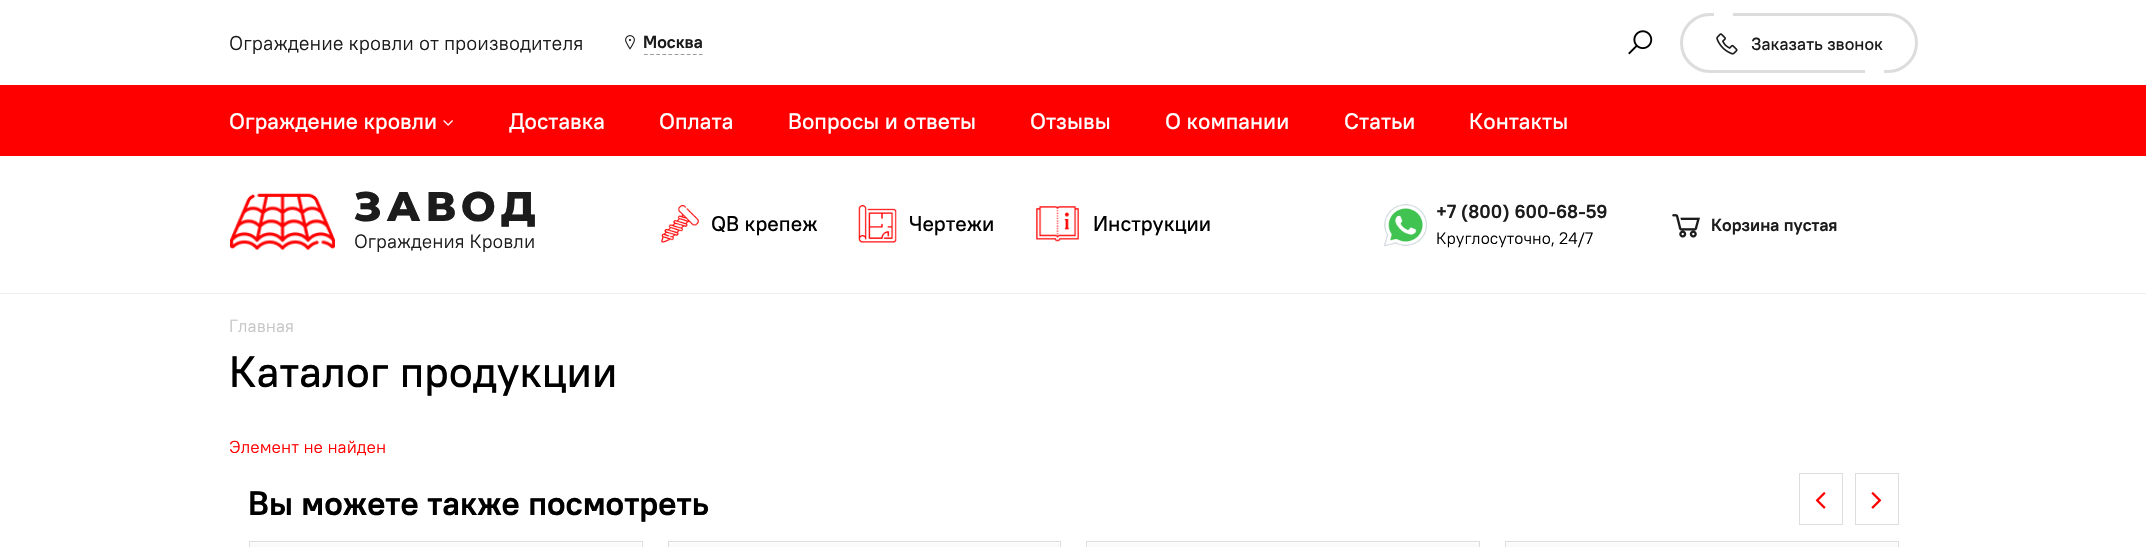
void draw(SkCanvas* canvas) {
  SkPaint paint;
  paint.setAntiAlias(true);
  auto face = [&](const char* family, int weight, float size, bool italic = false) {
    SkFontStyle style(weight, SkFontStyle::kNormal_Width,
      italic ? SkFontStyle::kItalic_Slant : SkFontStyle::kUpright_Slant);
    SkFont result(fontMgr->matchFamilyStyle(family, style), size);
    result.setSubpixel(true);
    return result;
  };
  auto writeSpaced = [&](const char* s, float x, float y, const SkFont& font, const SkPaint& ink, float letter, float word) {
    std::vector<SkGlyphID> glyphs(font.countText(s, strlen(s), SkTextEncoding::kUTF8));
    std::vector<float> xs(glyphs.size());
    font.textToGlyphs(s, strlen(s), SkTextEncoding::kUTF8, glyphs);
    font.getXPos(glyphs, xs, x);
    float extra = 0;
    for (size_t i = 0; i < glyphs.size(); i++) {
      xs[i] += extra;
      extra += letter + word * (glyphs[i] == font.unicharToGlyph(' '));
    }
    canvas->drawTextBlob(SkTextBlob::MakeFromPosHGlyphs(glyphs, xs, y, font), 0, 0, ink);
  };
  auto paste = [&](const char* path, float x, float y, float w, float h) {
    auto image = SkImages::DeferredFromEncodedData(SkData::MakeFromFileName(path));
    canvas->drawImageRect(image, SkRect::MakeXYWH(x, y, w, h), SkSamplingOptions());
  };
  auto shape = [&](const char* data, bool evenOdd = false) {
    SkPath result = *SkParsePath::FromSVGString(data);
    if (evenOdd) result.setFillType(SkPathFillType::kEvenOdd);
    return result;
  };
  canvas->clear(0xffffffff);
  paste("img/1.png", 625, 35, 10, 15);
  paint.setStroke(true);
  paint.setStrokeWidth(1.2f);
  paint.setColor(0xff999999);
  paint.setPathEffect(SkDashPathEffect::Make({{3.75f, 2.36f}}, 0));
  canvas->drawPath(shape("M644 54.5H702.5"), paint);
  paint.setPathEffect(nullptr);
  paste("img/2.png", 1628, 30, 25, 25);
  paint.setStrokeWidth(3);
  paint.setColor(0xffdddddd);
  canvas->drawRoundRect(SkRect::MakeXYWH(1681.5f, 14.5f, 235, 57), 28.5f, 28.5f, paint);
  paint.setStroke(false);
  paint.setColor(0xffffffff);
  canvas->drawRect(SkRect::MakeXYWH(1714, 13, 19, 3), paint);
  paste("img/3.png", 1716, 33, 22, 22);
  canvas->drawRect(SkRect::MakeXYWH(1865, 70, 19, 3), paint);
  paint.setColor(0xffff0000);
  canvas->drawRect(SkRect::MakeXYWH(0, 85, 2146, 71), paint);
  paste("img/4.png", 443, 120, 10, 6);
  paint.setColor(0xffeeeeee);
  canvas->drawRect(SkRect::MakeXYWH(0, 293, 2146, 1), paint);
  paste("img/5.png", 230, 193, 105, 57);
  paste("img/6.png", 661, 205, 38, 38);
  paste("img/7.png", 858, 205, 39, 38);
  paste("img/8.png", 1036, 206, 43, 36);
  paste("img/9.png", 1384, 204, 43, 43);
  paste("img/10.png", 1672, 214, 28, 24);
  paint.setStroke(true);
  paint.setStrokeWidth(1);
  paint.setColor(0xffdddddd);
  canvas->drawRect(SkRect::MakeXYWH(1799.5f, 473.5f, 43, 51), paint);
  paste("img/11.png", 1815, 492, 11, 17);
  canvas->drawRect(SkRect::MakeXYWH(1855.5f, 473.5f, 43, 51), paint);
  paste("img/12.png", 1871, 492, 11, 17);
  canvas->drawRect(SkRect::MakeXYWH(249.5f, 541.5f, 393, 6), paint);
  paint.setStroke(false);
  paint.setColor(0xfffafafa);
  canvas->drawRect(SkRect::MakeXYWH(250, 543, 391, 4), paint);
  paint.setStroke(true);
  paint.setColor(0xffdddddd);
  canvas->drawRect(SkRect::MakeXYWH(668.5f, 541.5f, 392, 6), paint);
  paint.setStroke(false);
  paint.setColor(0xfffafafa);
  canvas->drawRect(SkRect::MakeXYWH(669, 543, 391, 4), paint);
  paint.setStroke(true);
  paint.setColor(0xffdddddd);
  canvas->drawRect(SkRect::MakeXYWH(1086.5f, 541.5f, 393, 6), paint);
  paint.setStroke(false);
  paint.setColor(0xfffafafa);
  canvas->drawRect(SkRect::MakeXYWH(1088, 543, 391, 4), paint);
  paint.setStroke(true);
  paint.setColor(0xffdddddd);
  canvas->drawRect(SkRect::MakeXYWH(1505.5f, 541.5f, 393, 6), paint);
  paint.setStroke(false);
  paint.setColor(0xfffafafa);
  canvas->drawRect(SkRect::MakeXYWH(1506, 543, 392, 4), paint);
  auto f0 = face("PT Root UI", 400, 20);
  paint.setColor(0xff1c1c1c);
  canvas->drawString("Ограждение кровли от производителя", 229, 50, f0, paint);
  auto f1 = face("PT Root UI", 700, 17.5f);
  canvas->drawString("Москва", 643, 48, f1, paint);
  auto f2 = face("PT Root UI", 500, 17.5f);
  canvas->drawString("Заказать звонок", 1751, 50, f2, paint);
  auto f3 = face("PT Root UI", 500, 22.5f);
  paint.setColor(0xffffffff);
  {
    const struct { const char* s; float x, y; } items[] = {
      {"Ограждение кровли", 229, 129},
      {"Доставка", 509, 129},
      {"Оплата", 659, 129},
      {"Вопросы и ответы", 788, 129},
      {"Отзывы", 1030, 129},
      {"О компании", 1165, 129},
      {"Статьи", 1344, 129},
      {"Контакты", 1469, 129},
    };
    for (auto [s, x, y] : items) {
      canvas->drawString(s, x, y, f3, paint);
    }
  }
  auto f4 = face("Montserrat", 800, 41.25f);
  paint.setColor(0xff1c1c1c);
  writeSpaced("ЗАВОД", 354, 221, f4, paint, 5, 0);
  auto f5 = face("PT Root UI", 400, 19.4f);
  canvas->drawString("Ограждения Кровли", 354, 248, f5, paint);
  auto f6 = face("PT Root UI", 500, 21.25f);
  paint.setColor(0xff000000);
  {
    const struct { const char* s; float x, y; } items[] = {
      {"QB крепеж", 711, 231},
      {"Чертежи", 909, 231},
      {"Инструкции", 1093, 231},
    };
    for (auto [s, x, y] : items) {
      canvas->drawString(s, x, y, f6, paint);
    }
  }
  auto f7 = face("PT Root UI", 700, 18.75f);
  paint.setColor(0xff1c1c1c);
  canvas->drawString("+7 (800) 600-68-59", 1436, 218, f7, paint);
  auto f8 = face("PT Root UI", 400, 16.6f);
  paint.setColor(0xff000000);
  canvas->drawString("Круглосуточно, 24/7", 1436, 244, f8, paint);
  paint.setColor(0xff1c1c1c);
  canvas->drawString("Корзина пустая", 1711, 231, f1, paint);
  auto f9 = face("PT Root UI", 400, 17.5f);
  paint.setColor(0xffc5c5c5);
  canvas->drawString("Главная", 229, 332, f9, paint);
  auto f10 = face("PT Root UI", 500, 43.75f);
  paint.setColor(0xff000000);
  canvas->drawString("Каталог продукции", 229, 387, f10, paint);
  paint.setColor(0xffff0000);
  canvas->drawString("Элемент не найден", 229, 453, f9, paint);
  auto f11 = face("PT Root UI", 700, 33.75f);
  paint.setColor(0xff000000);
  canvas->drawString("Вы можете также посмотреть", 248, 515, f11, paint);
}
